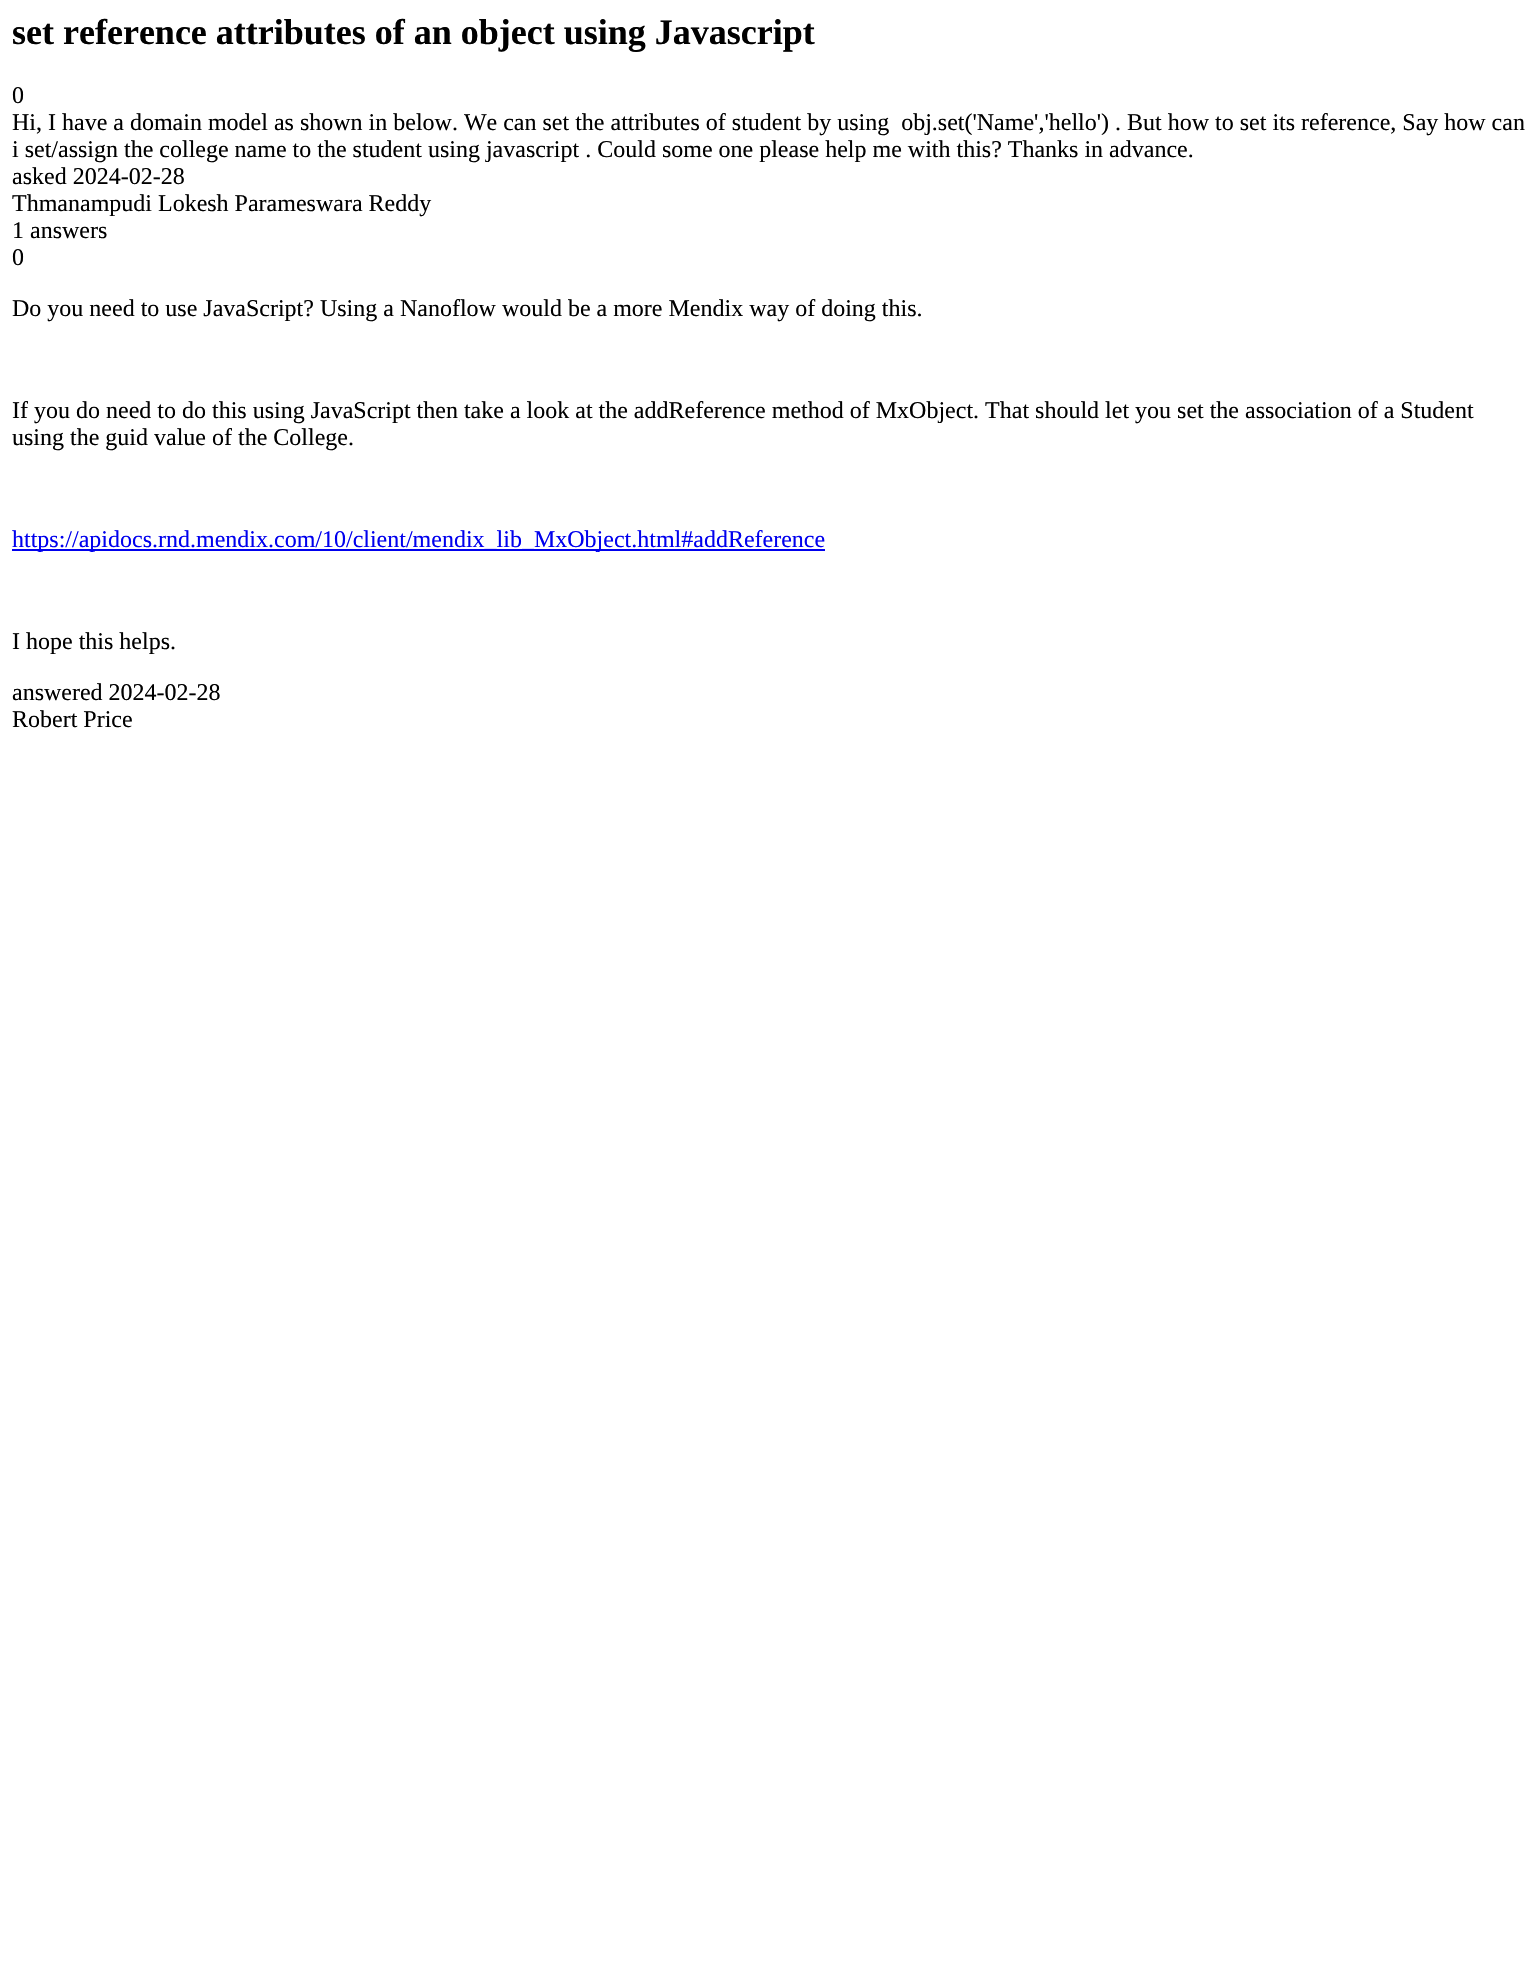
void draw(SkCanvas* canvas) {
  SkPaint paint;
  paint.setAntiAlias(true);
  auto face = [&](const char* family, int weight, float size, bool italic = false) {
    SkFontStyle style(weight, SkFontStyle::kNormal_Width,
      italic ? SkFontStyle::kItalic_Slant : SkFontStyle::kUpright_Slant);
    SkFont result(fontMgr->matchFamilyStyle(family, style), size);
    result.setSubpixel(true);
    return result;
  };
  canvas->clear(0xffffffff);
  paint.setColor(0xff0000ee);
  canvas->drawRect(SkRect::MakeXYWH(12, 549, 813, 2), paint);
  auto f0 = face("Liberation Serif", 700, 36);
  paint.setColor(0xff000000);
  canvas->drawString("set reference attributes of an object using Javascript", 12, 44, f0, paint);
  auto f1 = face("Liberation Serif", 400, 24);
  {
    const struct { const char* s; float x, y; } items[] = {
      {"0", 12, 103},
      {"Hi, I have a domain model as shown in below. We can set the attributes of student by using  obj.set('Name','hello') . But how to set its reference, Say how can", 12, 130},
      {"i set/assign the college name to the student using javascript . Could some one please help me with this? Thanks in advance.", 12, 157},
      {"asked 2024-02-28", 12, 184},
      {"Thmanampudi Lokesh Parameswara Reddy", 12, 211},
      {"1 answers", 12, 238},
      {"0", 12, 265},
      {"Do you need to use JavaScript? Using a Nanoflow would be a more Mendix way of doing this.", 12, 316},
      {"If you do need to do this using JavaScript then take a look at the addReference method of MxObject. That should let you set the association of a Student", 12, 418},
      {"using the guid value of the College.", 12, 445},
    };
    for (auto [s, x, y] : items) {
      canvas->drawString(s, x, y, f1, paint);
    }
  }
  paint.setColor(0xff0000ee);
  canvas->drawString("https://apidocs.rnd.mendix.com/10/client/mendix_lib_MxObject.html#addReference", 12, 547, f1, paint);
  paint.setColor(0xff000000);
  {
    const struct { const char* s; float x, y; } items[] = {
      {"I hope this helps.", 12, 649},
      {"answered 2024-02-28", 12, 700},
      {"Robert Price", 12, 727},
    };
    for (auto [s, x, y] : items) {
      canvas->drawString(s, x, y, f1, paint);
    }
  }
}
